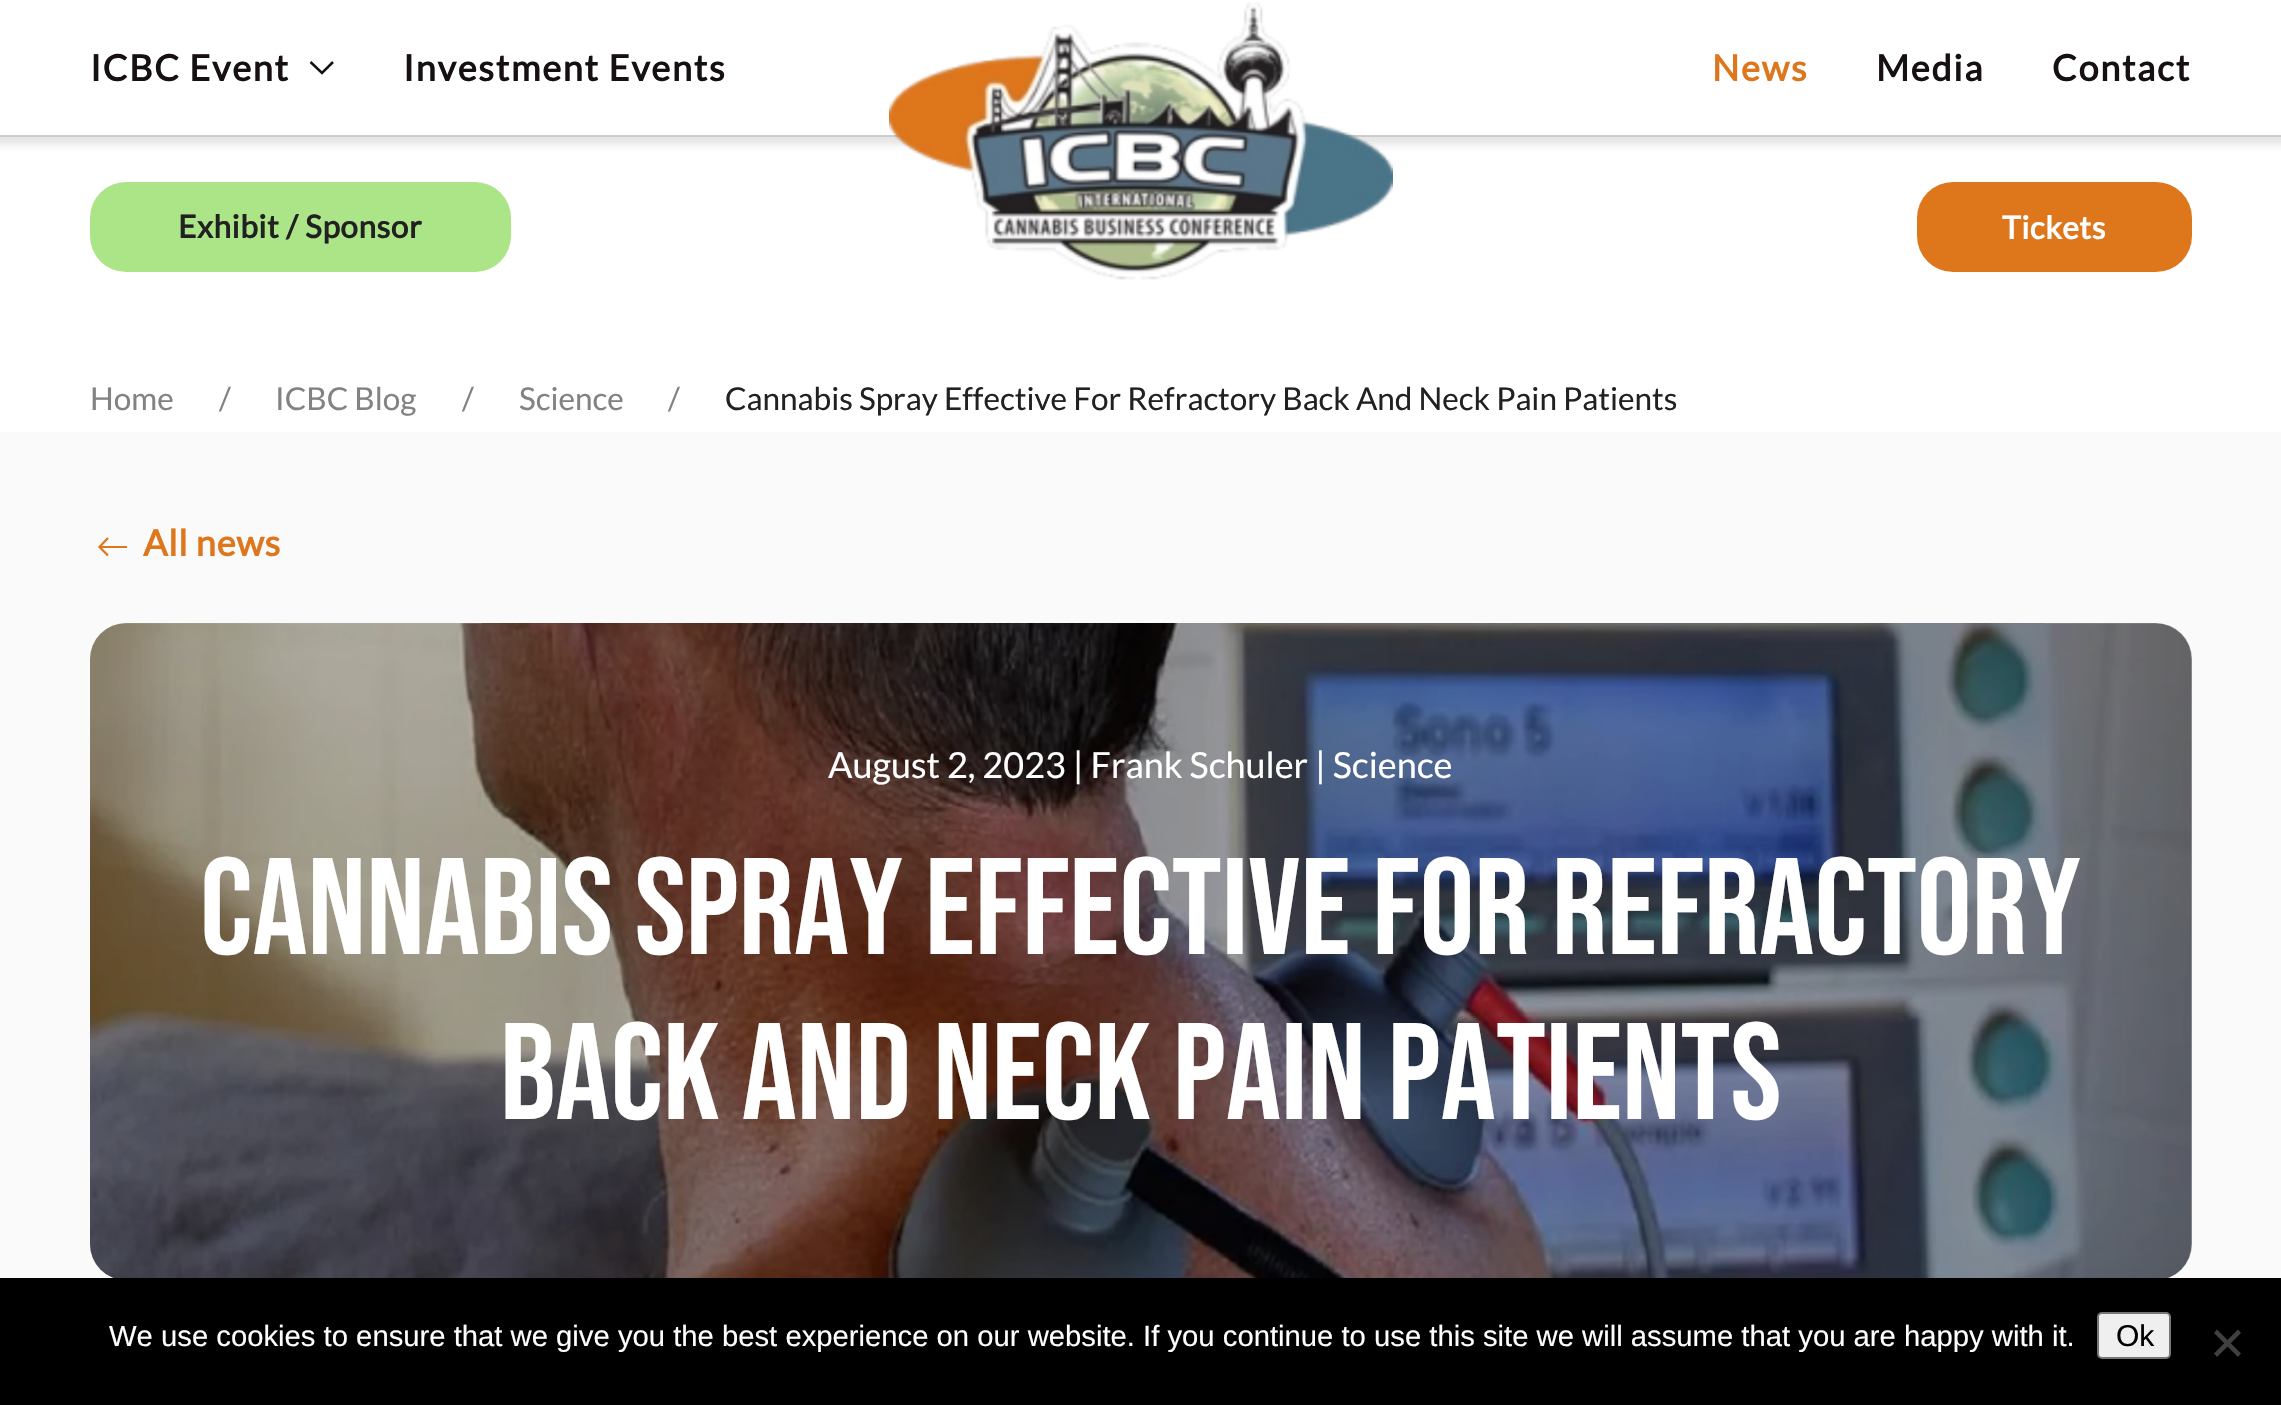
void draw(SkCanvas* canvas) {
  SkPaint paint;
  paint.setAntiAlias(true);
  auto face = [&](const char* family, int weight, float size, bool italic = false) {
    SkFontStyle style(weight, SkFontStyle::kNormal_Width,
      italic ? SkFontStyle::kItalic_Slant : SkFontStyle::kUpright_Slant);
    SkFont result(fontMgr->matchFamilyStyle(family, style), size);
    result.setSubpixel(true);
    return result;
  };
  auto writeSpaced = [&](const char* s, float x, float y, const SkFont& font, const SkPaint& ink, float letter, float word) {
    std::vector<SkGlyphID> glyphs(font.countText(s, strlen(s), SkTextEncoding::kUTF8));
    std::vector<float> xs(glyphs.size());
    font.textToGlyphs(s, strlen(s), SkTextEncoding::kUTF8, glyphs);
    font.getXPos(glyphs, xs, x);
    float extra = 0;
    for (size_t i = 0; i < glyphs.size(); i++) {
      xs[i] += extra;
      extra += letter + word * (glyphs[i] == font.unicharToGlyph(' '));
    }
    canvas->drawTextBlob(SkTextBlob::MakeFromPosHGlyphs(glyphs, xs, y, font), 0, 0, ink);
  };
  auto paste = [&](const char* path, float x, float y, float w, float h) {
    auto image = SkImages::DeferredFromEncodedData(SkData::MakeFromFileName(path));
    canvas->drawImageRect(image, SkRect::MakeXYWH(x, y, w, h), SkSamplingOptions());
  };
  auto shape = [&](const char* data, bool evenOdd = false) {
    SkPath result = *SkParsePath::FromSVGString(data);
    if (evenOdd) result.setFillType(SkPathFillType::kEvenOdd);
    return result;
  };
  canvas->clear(0xffffffff);
  paint.setStroke(true);
  paint.setStrokeWidth(2.5f);
  paint.setColor(0xff161012);
  canvas->drawPath(shape("M310.5 62L322 73L333 62"), paint);
  paint.setStroke(false);
  paint.setColor(0xffcccccc);
  canvas->drawRect(SkRect::MakeXYWH(0, 135, 2281, 2), paint);
  {
    const SkColor colors[] = {0xffe6e6e6, 0xffe9e9e9, 0xfff7f7f7, 0xfffcfcfc, 0xffffffff};
    const float stops[] = {0, 0.25f, 0.5f, 0.75f, 1};
    const SkPoint ends[] = {{1141, 137}, {1141, 155}};
    paint.setShader(SkGradientShader::MakeLinear(ends, colors, stops, 5, SkTileMode::kClamp));
    paint.setAlpha(255);
  }
  canvas->drawRect(SkRect::MakeXYWH(0, 137, 2281, 14), paint);
  paste("img/1.png", 889, 2, 504, 278);
  paint.setShader(nullptr);
  paint.setColor(0xfface488);
  canvas->drawRoundRect(SkRect::MakeXYWH(90, 182, 421, 90), 36, 36, paint);
  paint.setColor(0xffde761c);
  canvas->drawRoundRect(SkRect::MakeXYWH(1917, 182, 275, 90), 36, 36, paint);
  paint.setColor(0xfffafafa);
  canvas->drawRect(SkRect::MakeXYWH(0, 432, 2281, 846), paint);
  paint.setColor(0xffde761c);
  canvas->drawRect(SkRect::MakeXYWH(100, 546, 27, 2), paint);
  paint.setStroke(true);
  paint.setStrokeWidth(2.2f);
  canvas->drawPath(shape("M108 538L99.5 547L108 555.5"), paint);
  paste("img/2.png", 90, 623, 2102, 655);
  paint.setStroke(false);
  paint.setColor(0x4d000000);
  canvas->drawRoundRect(SkRect::MakeXYWH(90, 623, 2102, 657), 36, 36, paint);
  paint.setColor(0xff000000);
  canvas->drawRect(SkRect::MakeXYWH(0, 1278, 2281, 127), paint);
  paint.setColor(0xffefefef);
  canvas->drawRoundRect(SkRect::MakeXYWH(2098, 1313, 72, 45), 4, 4, paint);
  paint.setStroke(true);
  paint.setStrokeWidth(2);
  paint.setColor(0xff767676);
  canvas->drawRoundRect(SkRect::MakeXYWH(2098, 1313, 72, 45), 4, 4, paint);
  paint.setStroke(false);
  paint.setColor(0xff404040);
  canvas->drawPath(shape("M2238 1329.5L2241 1333L2217 1357L2214 1353.5Z"), paint);
  canvas->drawPath(shape("M2214 1333L2217 1329.5L2241 1353.5L2238 1357Z"), paint);
  auto f0 = face("Lato", 700, 36);
  paint.setColor(0xff161012);
  writeSpaced("ICBC Event", 90, 81, f0, paint, 1.75f, 0);
  writeSpaced("Investment Events", 403, 81, f0, paint, 1.75f, 0);
  paint.setColor(0xffde761c);
  writeSpaced("News", 1712, 81, f0, paint, 1.75f, 0);
  paint.setColor(0xff161012);
  writeSpaced("Media", 1876, 81, f0, paint, 1.75f, 0);
  writeSpaced("Contact", 2052, 81, f0, paint, 1.75f, 0);
  auto f1 = face("Lato", 700, 31.5f);
  paint.setColor(0xff212121);
  writeSpaced("Exhibit / Sponsor", 178, 238, f1, paint, 0.6f, 0);
  paint.setColor(0xffffffff);
  writeSpaced("Tickets", 2002, 239, f1, paint, 0.6f, 0);
  auto f2 = face("Lato", 400, 31.5f);
  paint.setColor(0xff828282);
  {
    const struct { const char* s; float x, y; } items[] = {
      {"Home", 90, 410},
      {"/", 219, 410},
      {"ICBC Blog", 275, 410},
      {"/", 462, 410},
      {"Science", 519, 410},
      {"/", 668, 410},
    };
    for (auto [s, x, y] : items) {
      canvas->drawString(s, x, y, f2, paint);
    }
  }
  paint.setColor(0xff212121);
  canvas->drawString("Cannabis Spray Effective For Refractory Back And Neck Pain Patients", 725, 410, f2, paint);
  paint.setColor(0xffde761c);
  writeSpaced("All news", 143, 556, f0, paint, 0.75f, 0);
  auto f3 = face("Lato", 400, 36);
  paint.setColor(0xffffffff);
  canvas->drawString("August 2, 2023 | Frank Schuler | Science", 828, 778, f3, paint);
  auto f4 = face("Bebas Neue", 400, 137.25f);
  canvas->drawString("Cannabis Spray Effective For Refractory", 200, 954, f4, paint);
  canvas->drawString("Back And Neck Pain Patients", 500, 1119, f4, paint);
  auto f5 = face("Liberation Sans", 400, 29.25f);
  canvas->drawString("We use cookies to ensure that we give you the best experience on our website. If you continue to use this site we will assume that you are happy with it.", 109, 1346, f5, paint);
  auto f6 = face("Liberation Sans", 400, 30);
  paint.setColor(0xff000000);
  canvas->drawString("Ok", 2116, 1346, f6, paint);
}
